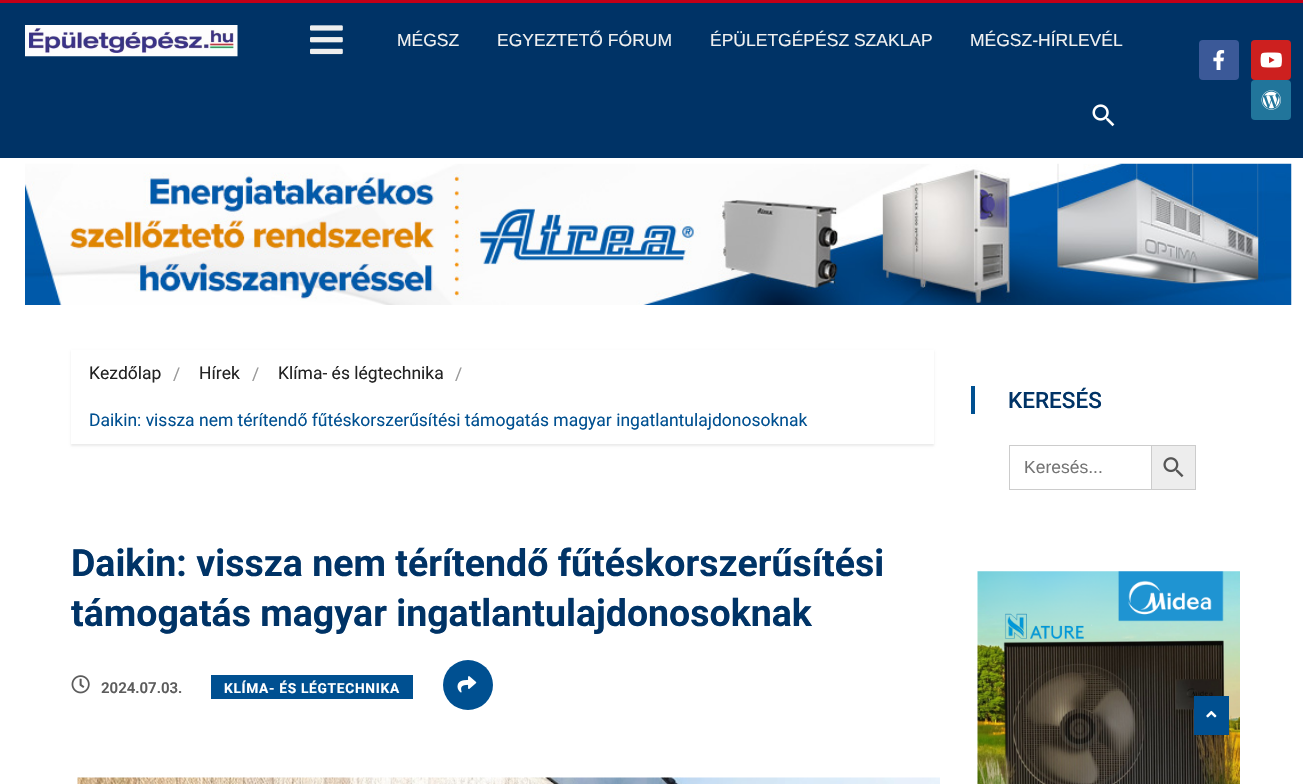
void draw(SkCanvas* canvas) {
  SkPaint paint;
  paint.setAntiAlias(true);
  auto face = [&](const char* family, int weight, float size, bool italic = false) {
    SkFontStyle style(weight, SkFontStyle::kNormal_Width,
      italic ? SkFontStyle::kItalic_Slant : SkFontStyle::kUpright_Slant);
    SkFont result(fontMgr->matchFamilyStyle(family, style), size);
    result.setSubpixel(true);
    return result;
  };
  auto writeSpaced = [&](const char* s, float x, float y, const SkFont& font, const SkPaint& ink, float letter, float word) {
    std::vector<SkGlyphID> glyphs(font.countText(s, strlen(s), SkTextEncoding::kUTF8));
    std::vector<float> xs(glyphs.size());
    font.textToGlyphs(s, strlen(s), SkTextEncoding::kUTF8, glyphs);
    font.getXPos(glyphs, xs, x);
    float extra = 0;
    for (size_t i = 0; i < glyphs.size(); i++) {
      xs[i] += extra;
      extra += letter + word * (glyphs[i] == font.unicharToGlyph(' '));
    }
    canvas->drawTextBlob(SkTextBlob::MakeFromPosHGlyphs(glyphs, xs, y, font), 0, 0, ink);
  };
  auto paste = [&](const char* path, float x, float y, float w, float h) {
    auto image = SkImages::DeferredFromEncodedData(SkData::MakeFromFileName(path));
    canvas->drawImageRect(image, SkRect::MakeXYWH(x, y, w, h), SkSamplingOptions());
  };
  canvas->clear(0xffffffff);
  paint.setColor(0xff003366);
  canvas->drawRect(SkRect::MakeXYWH(0, 3, 1303, 155), paint);
  paint.setColor(0xffc20017);
  canvas->drawRect(SkRect::MakeXYWH(0, 0, 1303, 3), paint);
  paste("img/1.png", 25, 25, 213, 32);
  paste("img/2.png", 310, 25, 33, 30);
  paste("img/3.png", 1092, 104, 23, 23);
  paint.setColor(0xff3b5998);
  canvas->drawRoundRect(SkRect::MakeXYWH(1199, 40, 40, 40), 4, 4, paint);
  paste("img/4.png", 1213, 50, 12, 20);
  paint.setColor(0xffcd201f);
  canvas->drawRoundRect(SkRect::MakeXYWH(1251, 40, 40, 40), 4, 4, paint);
  paste("img/5.png", 1260, 52, 22, 16);
  paint.setColor(0xff21759b);
  canvas->drawRoundRect(SkRect::MakeXYWH(1251, 80, 40, 40), 4, 4, paint);
  paste("img/6.png", 1261, 90, 20, 20);
  paste("img/7.png", 25, 163, 1267, 142);
  paint.setColor(0x14000000);
  paint.setMaskFilter(SkMaskFilter::MakeBlur(kNormal_SkBlurStyle, 1));
  canvas->drawRect(SkRect::MakeXYWH(71, 351, 863, 95), paint);
  paint.setMaskFilter(nullptr);
  paint.setColor(0xffffffff);
  canvas->drawRect(SkRect::MakeXYWH(71, 350, 863, 94), paint);
  paste("img/8.png", 71, 675, 19, 19);
  paint.setColor(0xff005091);
  canvas->drawRect(SkRect::MakeXYWH(211, 675, 202, 24), paint);
  canvas->drawCircle(468, 685, 25, paint);
  paste("img/9.png", 457, 676, 20, 17);
  paste("img/10.png", 77, 777, 863, 7);
  {
    const struct { float x, y, w, h; SkColor color; } items[] = {
      {971, 386, 4, 28, 0xff005091},
      {1009, 445, 142, 1, 0xffcccccc},
      {1009, 489, 142, 1, 0xffcccccc},
      {1009, 445, 1, 45, 0xffcccccc},
    };
    for (auto [x, y, w, h, color] : items) {
      paint.setColor(color);
      canvas->drawRect(SkRect::MakeXYWH(x, y, w, h), paint);
    }
  }
  paint.setColor(0xffededed);
  canvas->drawRect(SkRect::MakeXYWH(1151.5f, 445.5f, 44, 44), paint);
  paint.setStroke(true);
  paint.setStrokeWidth(1);
  paint.setColor(0xffcccccc);
  canvas->drawRect(SkRect::MakeXYWH(1151.5f, 445.5f, 44, 44), paint);
  paste("img/11.png", 1163, 457, 21, 21);
  paste("img/12.png", 977, 571, 263, 213);
  paint.setStroke(false);
  paint.setColor(0xff005091);
  canvas->drawRect(SkRect::MakeXYWH(1194, 696, 35, 39), paint);
  paste("img/13.png", 1206, 710, 11, 8);
  auto f0 = face("Liberation Sans", 400, 17.5f);
  paint.setColor(0xfff1f1f1);
  {
    const struct { const char* s; float x, y; } items[] = {
      {"MÉGSZ", 397, 46},
      {"EGYEZTETŐ FÓRUM", 497, 46},
      {"ÉPÜLETGÉPÉSZ SZAKLAP", 710, 46},
      {"MÉGSZ-HÍRLEVÉL", 970, 46},
    };
    for (auto [s, x, y] : items) {
      canvas->drawString(s, x, y, f0, paint);
    }
  }
  auto f1 = face("Roboto", 400, 17.5f);
  paint.setColor(0xff232323);
  canvas->drawString("Kezdőlap", 89, 379, f1, paint);
  paint.setColor(0xff999999);
  canvas->drawString("/", 173, 380, f1, paint);
  paint.setColor(0xff232323);
  canvas->drawString("Hírek", 199, 379, f1, paint);
  paint.setColor(0xff999999);
  canvas->drawString("/", 252, 380, f1, paint);
  paint.setColor(0xff232323);
  canvas->drawString("Klíma- és légtechnika", 278, 379, f1, paint);
  paint.setColor(0xff999999);
  canvas->drawString("/", 455, 380, f1, paint);
  paint.setColor(0xff005091);
  canvas->drawString("Daikin: vissza nem térítendő fűtéskorszerűsítési támogatás magyar ingatlantulajdonosoknak", 89, 426, f1, paint);
  auto f2 = face("Roboto", 700, 37.5f);
  paint.setColor(0xff003366);
  canvas->drawString("Daikin: vissza nem térítendő fűtéskorszerűsítési", 71, 576, f2, paint);
  canvas->drawString("támogatás magyar ingatlantulajdonosoknak", 71, 626, f2, paint);
  auto f3 = face("Roboto", 600, 15);
  paint.setColor(0xff5c5c5c);
  canvas->drawString("2024.07.03.", 101, 693, f3, paint);
  auto f4 = face("Roboto", 700, 13.75f);
  paint.setColor(0xffffffff);
  writeSpaced("KLÍMA- ÉS LÉGTECHNIKA", 224, 693, f4, paint, 0.7f, 0);
  auto f5 = face("Roboto", 500, 22.5f);
  paint.setColor(0xff003366);
  canvas->drawString("KERESÉS", 1008, 408, f5, paint);
  paint.setColor(0xff757575);
  canvas->drawString("Keresés...", 1024, 473, f0, paint);
}
